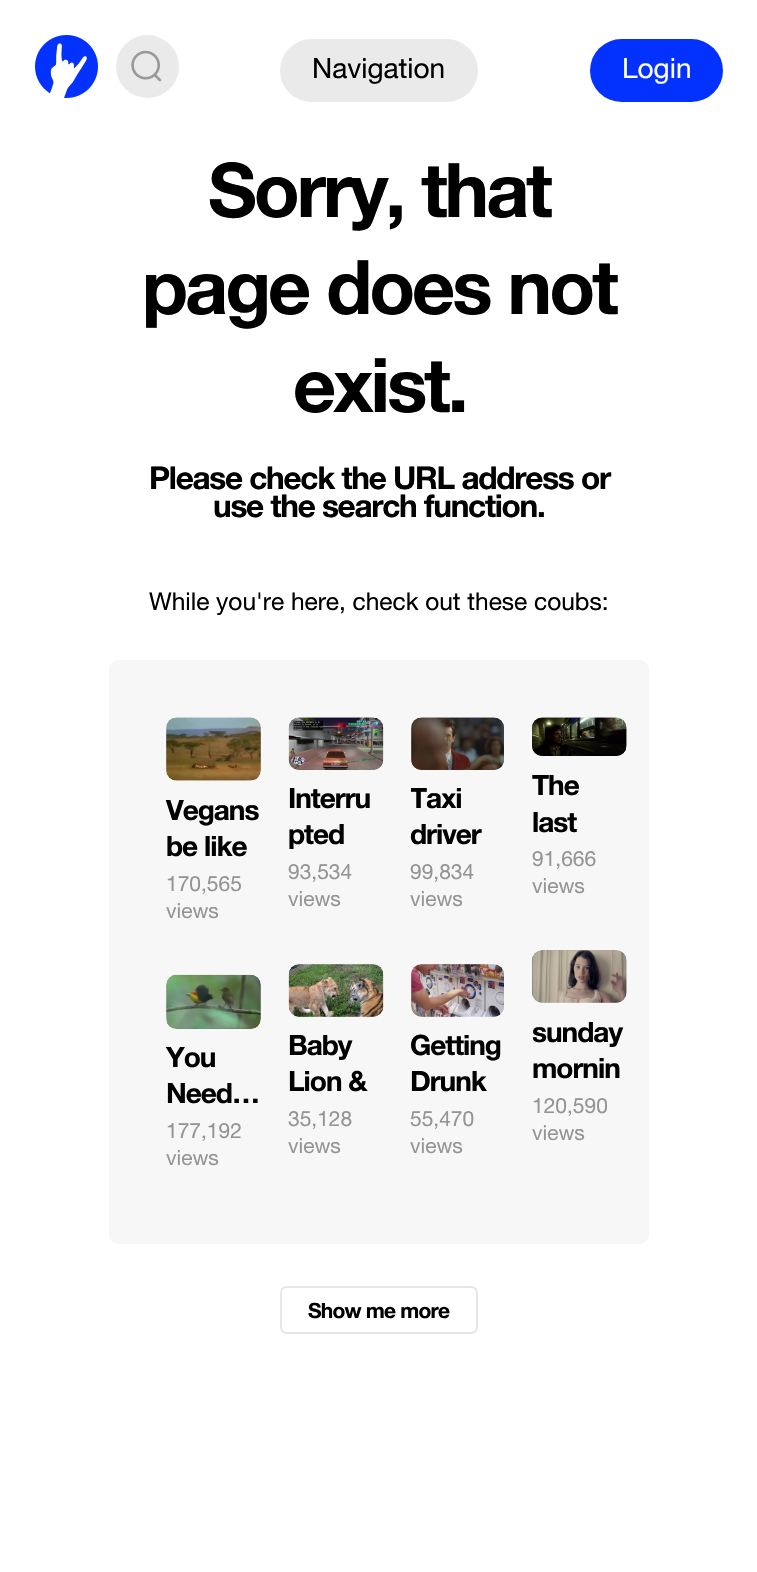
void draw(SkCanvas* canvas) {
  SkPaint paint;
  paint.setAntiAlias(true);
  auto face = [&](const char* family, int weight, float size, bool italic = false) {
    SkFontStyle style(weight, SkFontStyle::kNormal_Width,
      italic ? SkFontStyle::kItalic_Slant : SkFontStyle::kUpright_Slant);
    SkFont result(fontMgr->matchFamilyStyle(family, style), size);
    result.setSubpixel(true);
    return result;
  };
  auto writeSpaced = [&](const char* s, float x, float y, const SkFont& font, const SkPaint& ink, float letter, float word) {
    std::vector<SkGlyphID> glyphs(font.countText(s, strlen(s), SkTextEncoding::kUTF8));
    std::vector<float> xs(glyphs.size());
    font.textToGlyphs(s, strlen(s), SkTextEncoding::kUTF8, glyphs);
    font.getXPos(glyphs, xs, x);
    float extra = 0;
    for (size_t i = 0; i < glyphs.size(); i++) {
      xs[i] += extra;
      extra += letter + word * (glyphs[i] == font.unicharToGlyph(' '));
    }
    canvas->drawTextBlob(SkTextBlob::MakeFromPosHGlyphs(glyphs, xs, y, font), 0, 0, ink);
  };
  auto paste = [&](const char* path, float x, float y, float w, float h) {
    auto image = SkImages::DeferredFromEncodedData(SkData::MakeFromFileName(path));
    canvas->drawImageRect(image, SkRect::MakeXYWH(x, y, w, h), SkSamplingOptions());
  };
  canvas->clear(0xffffffff);
  paste("img/1.png", 35, 35, 63, 63);
  paint.setColor(0xffeaeaea);
  canvas->drawCircle(147.5f, 66.5f, 31.5f, paint);
  paste("img/2.png", 131, 50, 31, 32);
  canvas->drawRoundRect(SkRect::MakeXYWH(280, 39, 198, 63), 31.5f, 31.5f, paint);
  paint.setColor(0xff0332ff);
  canvas->drawRoundRect(SkRect::MakeXYWH(590, 39, 133, 63), 31.5f, 31.5f, paint);
  paint.setColor(0xfff7f7f7);
  canvas->drawRoundRect(SkRect::MakeXYWH(109, 660, 540, 584), 9, 9, paint);
  paste("img/3.png", 166, 717, 95, 64);
  paste("img/4.png", 166, 717, 95, 64);
  paste("img/5.png", 288, 717, 96, 53);
  paste("img/6.png", 288, 717, 96, 53);
  paste("img/7.png", 411, 717, 93, 53);
  paste("img/8.png", 411, 717, 93, 53);
  paste("img/9.png", 532, 717, 95, 39);
  paste("img/10.png", 532, 717, 95, 39);
  paste("img/11.png", 166, 974, 95, 55);
  paste("img/12.png", 166, 975, 95, 53);
  paste("img/13.png", 288, 964, 96, 53);
  paste("img/14.png", 288, 964, 96, 53);
  paste("img/15.png", 411, 964, 93, 53);
  paste("img/16.png", 411, 964, 93, 53);
  paste("img/17.png", 532, 950, 95, 53);
  paste("img/18.png", 532, 950, 95, 53);
  paint.setStroke(true);
  paint.setStrokeWidth(2);
  paint.setColor(0xffe6e6e6);
  canvas->drawRoundRect(SkRect::MakeXYWH(281, 1287, 196, 46), 6, 6, paint);
  paint.setStroke(false);
  paint.setColor(0xffffffff);
  canvas->drawRoundRect(SkRect::MakeXYWH(282, 1288, 194, 44), 5, 5, paint);
  auto f0 = face("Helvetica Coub", 400, 28);
  paint.setColor(0xff000000);
  canvas->drawString("Navigation", 312, 78, f0, paint);
  paint.setColor(0xffffffff);
  canvas->drawString("Login", 622, 78, f0, paint);
  auto f1 = face("Helvetica Coub", 700, 75.25f);
  paint.setColor(0xff000000);
  {
    const struct { const char* s; float x, y; } items[] = {
      {"Sorry, that", 208, 217},
      {"page does not", 142, 314},
      {"exist.", 293, 412},
    };
    for (auto [s, x, y] : items) {
      writeSpaced(s, x, y, f1, paint, -3, 0);
    }
  }
  auto f2 = face("Helvetica Coub", 700, 31.5f);
  writeSpaced("Please check the URL address or", 149, 489, f2, paint, -1.25f, 0);
  writeSpaced("use the search function.", 213, 517, f2, paint, -1.25f, 0);
  auto f3 = face("Helvetica Coub", 400, 24.5f);
  canvas->drawString("While you're here, check out these coubs:", 149, 610, f3, paint);
  auto f4 = face("Helvetica Coub", 700, 28);
  writeSpaced("Vegans", 166, 820, f4, paint, -1, 0);
  writeSpaced("be like", 166, 856, f4, paint, -1, 0);
  auto f5 = face("Helvetica Coub", 400, 21);
  paint.setColor(0xff949494);
  canvas->drawString("170,565", 166, 891, f5, paint);
  canvas->drawString("views", 166, 918, f5, paint);
  paint.setColor(0xff000000);
  writeSpaced("Interru", 288, 808, f4, paint, -1, 0);
  writeSpaced("pted", 288, 844, f4, paint, -1, 0);
  paint.setColor(0xff949494);
  canvas->drawString("93,534", 288, 879, f5, paint);
  canvas->drawString("views", 288, 906, f5, paint);
  canvas->save();
  canvas->clipRect(SkRect::MakeXYWH(411, 782, 93, 72));
  paint.setColor(0xff000000);
  writeSpaced("Taxi", 410, 808, f4, paint, -1, 0);
  canvas->restore();
  writeSpaced("driver", 410, 844, f4, paint, -1, 0);
  paint.setColor(0xff949494);
  canvas->drawString("99,834", 410, 879, f5, paint);
  canvas->drawString("views", 410, 906, f5, paint);
  paint.setColor(0xff000000);
  writeSpaced("The", 532, 795, f4, paint, -1, 0);
  writeSpaced("last", 532, 832, f4, paint, -1, 0);
  paint.setColor(0xff949494);
  canvas->drawString("91,666", 532, 866, f5, paint);
  canvas->drawString("views", 532, 893, f5, paint);
  paint.setColor(0xff000000);
  writeSpaced("You", 166, 1067, f4, paint, -1, 0);
  writeSpaced("Need…", 166, 1103, f4, paint, -1, 0);
  paint.setColor(0xff949494);
  canvas->drawString("177,192", 166, 1138, f5, paint);
  canvas->drawString("views", 166, 1165, f5, paint);
  paint.setColor(0xff000000);
  writeSpaced("Baby", 288, 1055, f4, paint, -1, 0);
  writeSpaced("Lion &", 288, 1091, f4, paint, -1, 0);
  paint.setColor(0xff949494);
  canvas->drawString("35,128", 288, 1126, f5, paint);
  canvas->drawString("views", 288, 1153, f5, paint);
  paint.setColor(0xff000000);
  writeSpaced("Getting", 410, 1055, f4, paint, -1, 0);
  writeSpaced("Drunk", 410, 1091, f4, paint, -1, 0);
  paint.setColor(0xff949494);
  canvas->drawString("55,470", 410, 1126, f5, paint);
  canvas->drawString("views", 410, 1153, f5, paint);
  paint.setColor(0xff000000);
  writeSpaced("sunday", 532, 1042, f4, paint, -1, 0);
  writeSpaced("mornin", 532, 1078, f4, paint, -1, 0);
  paint.setColor(0xff949494);
  canvas->drawString("120,590", 532, 1113, f5, paint);
  canvas->drawString("views", 532, 1140, f5, paint);
  auto f6 = face("Helvetica Coub", 700, 21);
  paint.setColor(0xff000000);
  writeSpaced("Show me more", 308, 1318, f6, paint, -0.8f, 0);
}
